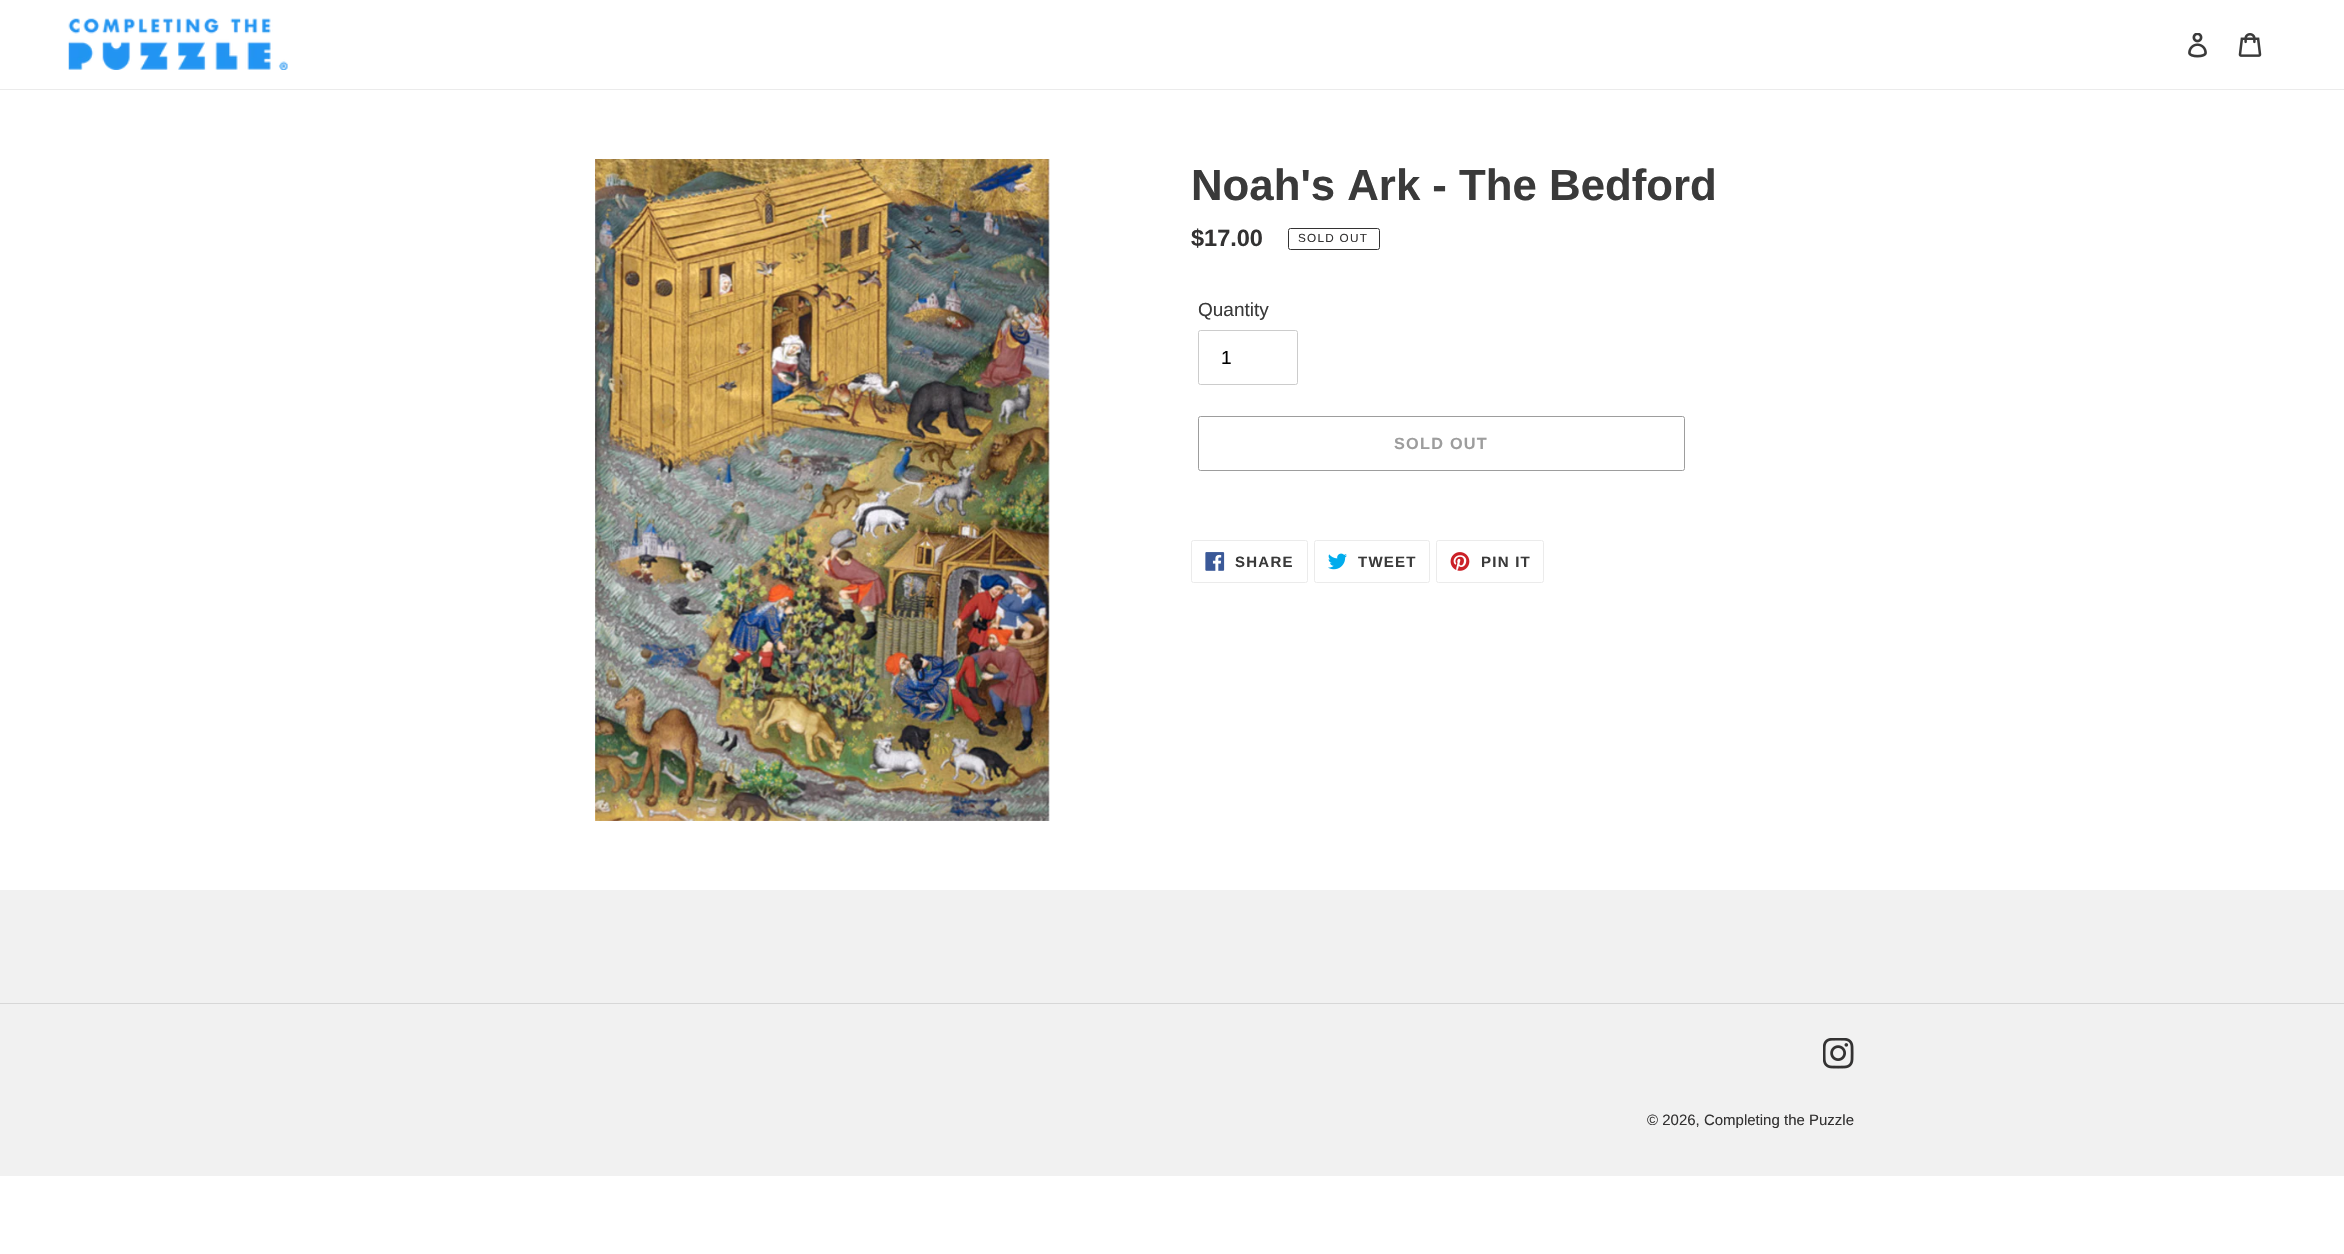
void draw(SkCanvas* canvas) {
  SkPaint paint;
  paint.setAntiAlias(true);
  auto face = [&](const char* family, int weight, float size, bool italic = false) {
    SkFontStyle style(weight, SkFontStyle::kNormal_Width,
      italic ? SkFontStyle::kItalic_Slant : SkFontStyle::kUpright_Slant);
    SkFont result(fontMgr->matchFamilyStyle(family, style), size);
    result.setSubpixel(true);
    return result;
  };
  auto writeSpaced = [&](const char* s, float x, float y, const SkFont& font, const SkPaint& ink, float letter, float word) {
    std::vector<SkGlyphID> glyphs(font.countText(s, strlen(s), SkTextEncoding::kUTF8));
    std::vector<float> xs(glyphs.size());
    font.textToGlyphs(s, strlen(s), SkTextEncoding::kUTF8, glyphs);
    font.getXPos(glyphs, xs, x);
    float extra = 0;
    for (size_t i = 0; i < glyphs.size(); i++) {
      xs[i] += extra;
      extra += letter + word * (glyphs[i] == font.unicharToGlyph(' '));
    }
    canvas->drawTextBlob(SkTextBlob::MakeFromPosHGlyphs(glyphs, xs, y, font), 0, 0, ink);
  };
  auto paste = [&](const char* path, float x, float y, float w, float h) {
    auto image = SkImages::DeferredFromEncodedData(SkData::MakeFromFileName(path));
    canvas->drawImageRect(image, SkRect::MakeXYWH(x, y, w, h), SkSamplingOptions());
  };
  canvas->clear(0xffffffff);
  paint.setColor(0xffebebeb);
  canvas->drawRect(SkRect::MakeXYWH(0, 89, 2344, 1), paint);
  paste("img/1.png", 68, 18, 220, 52);
  paste("img/2.png", 2188, 33, 19, 25);
  paste("img/3.png", 2238, 33, 24, 24);
  paste("img/4.png", 595, 159, 455, 662);
  paint.setStroke(true);
  paint.setStrokeWidth(1);
  paint.setColor(0xff333232);
  canvas->drawRoundRect(SkRect::MakeXYWH(1288.5f, 228.5f, 91, 21), 2, 2, paint);
  paint.setColor(0xffcccccc);
  canvas->drawRoundRect(SkRect::MakeXYWH(1198.5f, 330.5f, 99, 54), 2, 2, paint);
  paint.setColor(0xff9d9d9d);
  canvas->drawRoundRect(SkRect::MakeXYWH(1198.5f, 416.5f, 486, 54), 2, 2, paint);
  paint.setColor(0xffebebeb);
  canvas->drawRoundRect(SkRect::MakeXYWH(1191.5f, 540.5f, 116, 42), 2, 2, paint);
  paste("img/5.png", 1205, 552, 20, 19);
  canvas->drawRoundRect(SkRect::MakeXYWH(1314.5f, 540.5f, 115, 42), 2, 2, paint);
  paste("img/6.png", 1328, 553, 19, 17);
  canvas->drawRoundRect(SkRect::MakeXYWH(1436.5f, 540.5f, 107, 42), 2, 2, paint);
  paste("img/7.png", 1450, 552, 20, 19);
  paint.setStroke(false);
  paint.setColor(0xfff1f1f1);
  canvas->drawRect(SkRect::MakeXYWH(0, 890, 2344, 286), paint);
  paint.setColor(0xffd7d7d7);
  canvas->drawRect(SkRect::MakeXYWH(0, 1003, 2344, 1), paint);
  paste("img/8.png", 1823, 1038, 31, 31);
  auto f0 = face("Liberation Sans", 700, 43.75f);
  paint.setColor(0xff3a3a3a);
  canvas->drawString("Noah's Ark - The Bedford", 1191, 200, f0, paint);
  auto f1 = face("Liberation Sans", 700, 23.5f);
  paint.setColor(0xff333232);
  canvas->drawString("$17.00", 1191, 246, f1, paint);
  auto f2 = face("Liberation Sans", 400, 11.75f);
  writeSpaced("SOLD OUT", 1298, 242, f2, paint, 1.25f, 0);
  auto f3 = face("Liberation Sans", 400, 19);
  paint.setColor(0xff3a3a3a);
  canvas->drawString("Quantity", 1198, 316, f3, paint);
  paint.setColor(0xff000000);
  canvas->drawString("1", 1221, 364, f3, paint);
  auto f4 = face("Liberation Sans", 700, 16.25f);
  paint.setColor(0xff9d9d9d);
  writeSpaced("SOLD OUT", 1394, 449, f4, paint, 1.25f, 0);
  auto f5 = face("Liberation Sans", 700, 15);
  paint.setColor(0xff3a3a3a);
  {
    const struct { const char* s; float x, y; } items[] = {
      {"SHARE", 1235, 567},
      {"TWEET", 1358, 567},
      {"PIN IT", 1481, 567},
    };
    for (auto [s, x, y] : items) {
      writeSpaced(s, x, y, f5, paint, 1.25f, 0);
    }
  }
  auto f6 = face("Liberation Sans", 400, 15);
  paint.setColor(0xff333232);
  canvas->drawString("© 2026, Completing the Puzzle", 1647, 1125, f6, paint);
}
